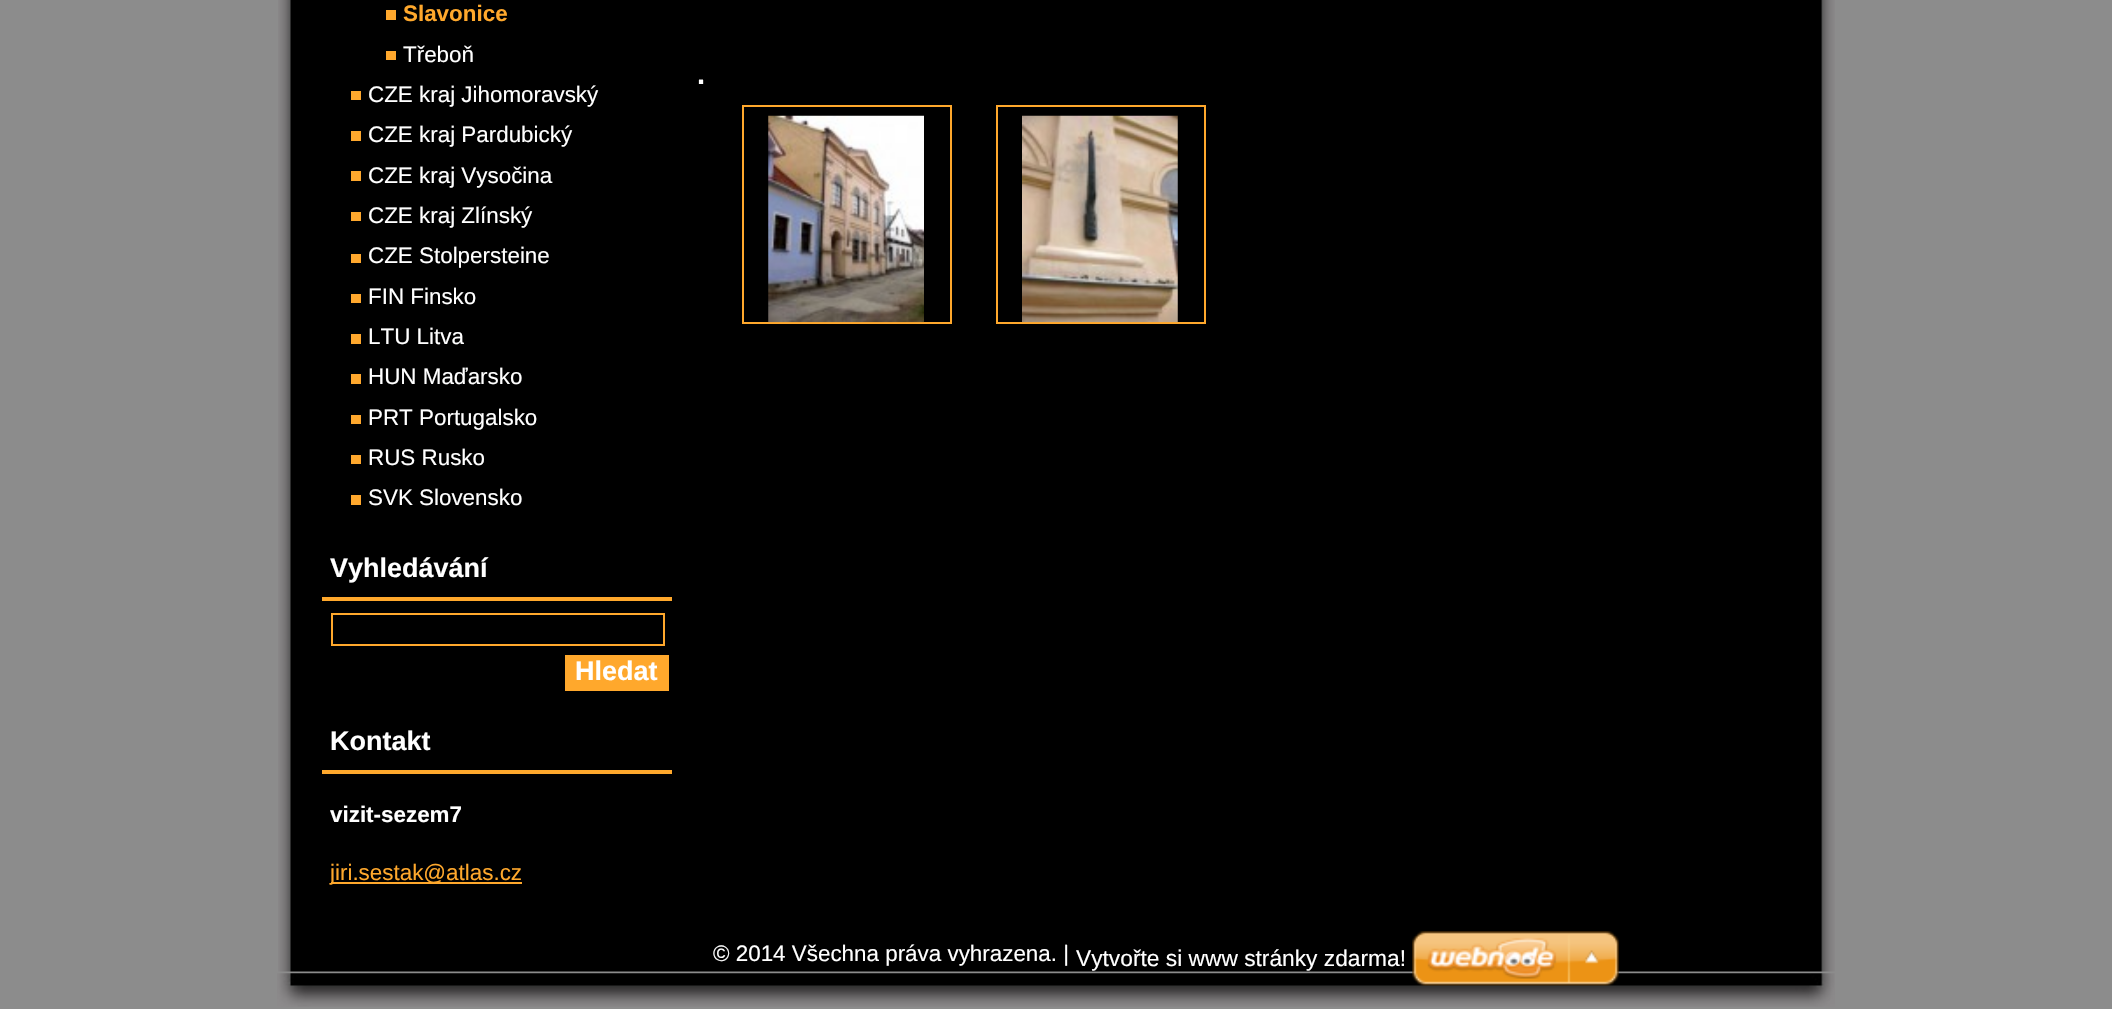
void draw(SkCanvas* canvas) {
  SkPaint paint;
  paint.setAntiAlias(true);
  auto face = [&](const char* family, int weight, float size, bool italic = false) {
    SkFontStyle style(weight, SkFontStyle::kNormal_Width,
      italic ? SkFontStyle::kItalic_Slant : SkFontStyle::kUpright_Slant);
    SkFont result(fontMgr->matchFamilyStyle(family, style), size);
    result.setSubpixel(true);
    return result;
  };
  auto paste = [&](const char* path, float x, float y, float w, float h) {
    auto image = SkImages::DeferredFromEncodedData(SkData::MakeFromFileName(path));
    canvas->drawImageRect(image, SkRect::MakeXYWH(x, y, w, h), SkSamplingOptions());
  };
  canvas->clear(0xff8c8c8c);
  paste("img/1.png", 278, 0, 1557, 290);
  paste("img/2.png", 278, 290, 1557, 650);
  {
    const struct { float x, y, w, h; SkColor color; } items[] = {
      {386, 10, 10, 10, 0xffffa82d},
      {386, 51, 10, 9, 0xffffa82d},
      {351, 91, 10, 9, 0xffffa82d},
      {351, 131, 10, 10, 0xffffa82d},
      {351, 171, 10, 10, 0xffffa82d},
      {351, 212, 10, 9, 0xffffa82d},
      {351, 254, 10, 9, 0xffffa82d},
      {351, 294, 10, 9, 0xffffa82d},
      {351, 334, 10, 10, 0xffffa82d},
      {351, 374, 10, 10, 0xffffa82d},
      {351, 415, 10, 9, 0xffffa82d},
      {351, 455, 10, 9, 0xffffa82d},
      {351, 495, 10, 10, 0xffffa82d},
      {322, 597, 350, 4, 0xffffa82c},
    };
    for (auto [x, y, w, h, color] : items) {
      paint.setColor(color);
      canvas->drawRect(SkRect::MakeXYWH(x, y, w, h), paint);
    }
  }
  paint.setStroke(true);
  paint.setStrokeWidth(2);
  canvas->drawRect(SkRect::MakeXYWH(332, 614, 332, 31), paint);
  paint.setStroke(false);
  {
    const struct { float x, y, w, h; SkColor color; } items[] = {
      {565, 655, 104, 36, 0xffffa82c},
      {322, 770, 350, 4, 0xffffa82c},
      {331, 882, 150, 2, 0xffffa82c},
      {481, 882, 41, 2, 0xffffa82c},
    };
    for (auto [x, y, w, h, color] : items) {
      paint.setColor(color);
      canvas->drawRect(SkRect::MakeXYWH(x, y, w, h), paint);
    }
  }
  paint.setStroke(true);
  canvas->drawRect(SkRect::MakeXYWH(743, 106, 208, 217), paint);
  paste("img/3.png", 768, 115, 156, 208);
  canvas->drawRect(SkRect::MakeXYWH(997, 106, 208, 217), paint);
  paste("img/4.png", 1022, 115, 156, 208);
  paste("img/5.png", 277, 973, 1558, 34);
  paste("img/6.png", 278, 940, 1557, 32);
  paste("img/7.png", 1412, 931, 207, 55);
  auto f0 = face("Liberation Sans", 700, 22.4f);
  paint.setStroke(false);
  canvas->drawString("Slavonice", 403, 21, f0, paint);
  auto f1 = face("Liberation Sans", 400, 22.4f);
  paint.setColor(0xffffffff);
  {
    const struct { const char* s; float x, y; } items[] = {
      {"Třeboň", 403, 62},
      {"CZE kraj Jihomoravský", 368, 102},
      {"CZE kraj Pardubický", 368, 142},
      {"CZE kraj Vysočina", 368, 183},
      {"CZE kraj Zlínský", 368, 223},
      {"CZE Stolpersteine", 368, 263},
      {"FIN Finsko", 368, 304},
      {"LTU Litva", 368, 344},
      {"HUN Maďarsko", 368, 384},
      {"PRT Portugalsko", 368, 425},
      {"RUS Rusko", 368, 465},
      {"SVK Slovensko", 368, 505},
    };
    for (auto [s, x, y] : items) {
      canvas->drawString(s, x, y, f1, paint);
    }
  }
  auto f2 = face("Liberation Sans", 700, 27);
  {
    const struct { const char* s; float x, y; } items[] = {
      {"Vyhledávání", 330, 577},
      {"Hledat", 575, 680},
      {"Kontakt", 330, 750},
    };
    for (auto [s, x, y] : items) {
      canvas->drawString(s, x, y, f2, paint);
    }
  }
  canvas->drawString("vizit-sezem7", 330, 822, f0, paint);
  paint.setColor(0xffffa82c);
  canvas->drawString("jiri.sestak@atlas.cz", 330, 880, f1, paint);
  auto f3 = face("Liberation Sans", 700, 29);
  paint.setColor(0xffffffff);
  canvas->drawString(".", 697, 84, f3, paint);
  canvas->drawString("© 2014 Všechna práva vyhrazena. |", 713, 961, f1, paint);
  auto f4 = face("Liberation Sans", 400, 22.75f);
  canvas->drawString("Vytvořte si www stránky zdarma!", 1076, 966, f4, paint);
}
